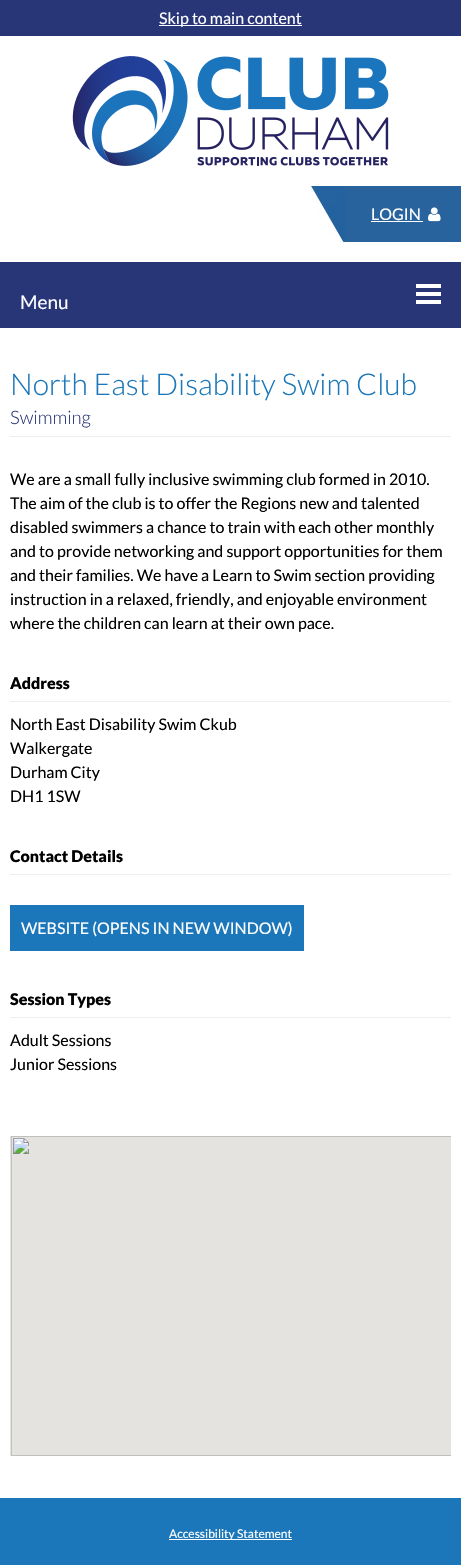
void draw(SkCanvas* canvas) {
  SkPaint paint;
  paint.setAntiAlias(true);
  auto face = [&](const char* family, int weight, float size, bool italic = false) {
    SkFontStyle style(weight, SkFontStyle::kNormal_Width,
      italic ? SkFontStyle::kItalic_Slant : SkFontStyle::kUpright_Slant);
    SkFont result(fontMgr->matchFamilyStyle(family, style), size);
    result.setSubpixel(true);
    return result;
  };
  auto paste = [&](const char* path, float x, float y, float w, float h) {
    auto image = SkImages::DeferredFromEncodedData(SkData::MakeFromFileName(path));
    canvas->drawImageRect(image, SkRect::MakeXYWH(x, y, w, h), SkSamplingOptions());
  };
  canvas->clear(0xffffffff);
  paint.setColor(0xff283577);
  canvas->drawRect(SkRect::MakeXYWH(0, 0, 461, 36), paint);
  paint.setColor(0xffffffff);
  canvas->drawRect(SkRect::MakeXYWH(159, 25, 143, 1), paint);
  paste("img/1.png", 72, 56, 317, 110);
  paint.setColor(0xff28639d);
  canvas->drawRect(SkRect::MakeXYWH(345, 186, 116, 56), paint);
  paste("img/2.png", 311, 186, 34, 56);
  paint.setColor(0xffffffff);
  canvas->drawRect(SkRect::MakeXYWH(371, 221, 52, 1), paint);
  paste("img/3.png", 428, 207, 13, 15);
  {
    const struct { float x, y, w, h; SkColor color; } items[] = {
      {0, 262, 461, 66, 0xff283577},
      {416, 292, 25, 4, 0xffffffff},
      {416, 284, 25, 4, 0xffffffff},
      {416, 300, 25, 4, 0xffffffff},
      {10, 436, 441, 1, 0xffeeeeee},
      {10, 701, 441, 1, 0xffeeeeee},
      {10, 874, 441, 1, 0xffeeeeee},
      {10, 905, 294, 46, 0xff1b77b9},
      {10, 1017, 441, 1, 0xffeeeeee},
    };
    for (auto [x, y, w, h, color] : items) {
      paint.setColor(color);
      canvas->drawRect(SkRect::MakeXYWH(x, y, w, h), paint);
    }
  }
  paste("img/4.png", 10, 1136, 441, 320);
  paint.setColor(0xff1b77b9);
  canvas->drawRect(SkRect::MakeXYWH(0, 1498, 461, 67), paint);
  paint.setColor(0xffffffff);
  canvas->drawRect(SkRect::MakeXYWH(169, 1539, 123, 1), paint);
  auto f0 = face("Lato", 400, 16);
  canvas->drawString("Skip to main content", 159, 24, f0, paint);
  canvas->drawString("LOGIN", 371, 220, f0, paint);
  auto f1 = face("Lato", 400, 19);
  canvas->drawString("Menu", 20, 309, f1, paint);
  auto f2 = face("Lato", 300, 30);
  paint.setColor(0xff1b77b9);
  canvas->drawString("North East Disability Swim Club", 10, 395, f2, paint);
  auto f3 = face("Lato", 300, 18.5f);
  paint.setColor(0xff283577);
  canvas->drawString("Swimming", 10, 424, f3, paint);
  paint.setColor(0xff000000);
  {
    const struct { const char* s; float x, y; } items[] = {
      {"We are a small fully inclusive swimming club formed in 2010.", 10, 485},
      {"The aim of the club is to offer the Regions new and talented", 10, 509},
      {"disabled swimmers a chance to train with each other monthly", 10, 533},
      {"and to provide networking and support opportunities for them", 10, 557},
      {"and their families. We have a Learn to Swim section providing", 10, 581},
      {"instruction in a relaxed, friendly, and enjoyable environment", 10, 605},
      {"where the children can learn at their own pace.", 10, 629},
    };
    for (auto [s, x, y] : items) {
      canvas->drawString(s, x, y, f0, paint);
    }
  }
  auto f4 = face("Lato", 900, 16);
  canvas->drawString("Address", 10, 689, f4, paint);
  {
    const struct { const char* s; float x, y; } items[] = {
      {"North East Disability Swim Ckub", 10, 730},
      {"Walkergate", 10, 754},
      {"Durham City", 10, 778},
      {"DH1 1SW", 10, 802},
    };
    for (auto [s, x, y] : items) {
      canvas->drawString(s, x, y, f0, paint);
    }
  }
  canvas->drawString("Contact Details", 10, 862, f4, paint);
  paint.setColor(0xffffffff);
  canvas->drawString("WEBSITE (OPENS IN NEW WINDOW)", 21, 934, f0, paint);
  paint.setColor(0xff000000);
  canvas->drawString("Session Types", 10, 1005, f4, paint);
  canvas->drawString("Adult Sessions", 10, 1046, f0, paint);
  canvas->drawString("Junior Sessions", 10, 1070, f0, paint);
  auto f5 = face("Lato", 400, 12);
  paint.setColor(0xffffffff);
  canvas->drawString("Accessibility Statement", 169, 1538, f5, paint);
}
